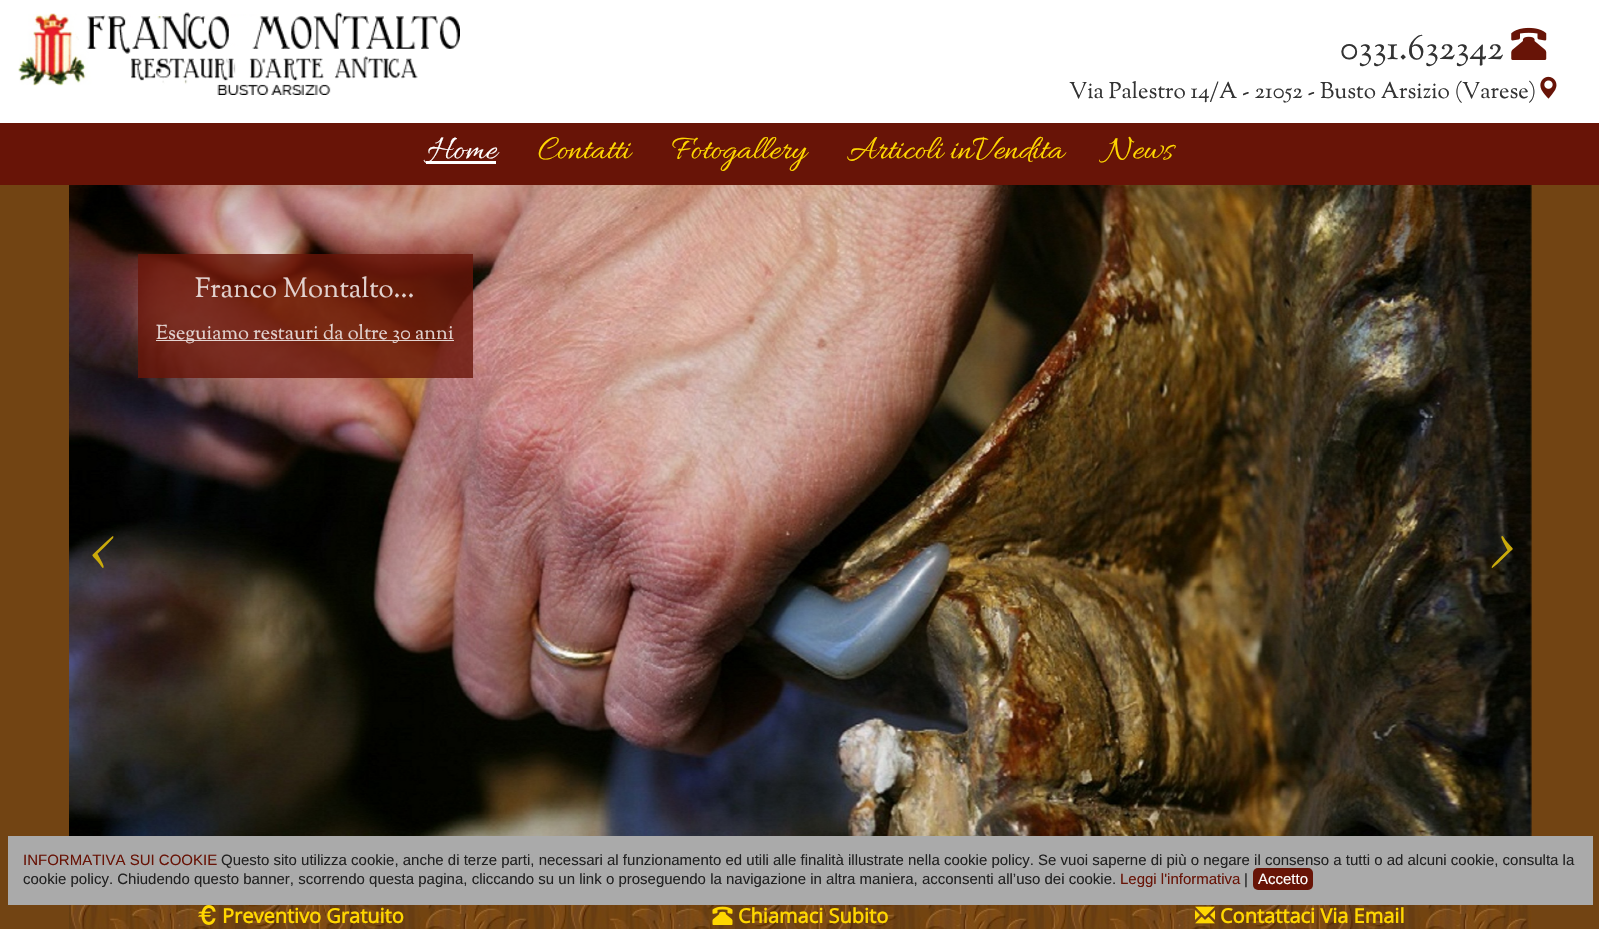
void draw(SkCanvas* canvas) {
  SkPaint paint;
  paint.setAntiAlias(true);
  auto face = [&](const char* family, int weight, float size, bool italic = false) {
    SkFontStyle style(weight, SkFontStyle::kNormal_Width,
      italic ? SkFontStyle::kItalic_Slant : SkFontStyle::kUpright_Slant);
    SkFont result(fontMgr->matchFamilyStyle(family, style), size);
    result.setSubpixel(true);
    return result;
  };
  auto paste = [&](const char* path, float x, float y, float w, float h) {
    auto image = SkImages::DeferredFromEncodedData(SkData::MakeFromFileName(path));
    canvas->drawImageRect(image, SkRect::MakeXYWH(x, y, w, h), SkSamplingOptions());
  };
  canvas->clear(0xff724413);
  paint.setColor(0xffffffff);
  canvas->drawRect(SkRect::MakeXYWH(0, 0, 1599, 123), paint);
  paste("img/1.png", 18, 12, 442, 83);
  paste("img/2.png", 1511, 27, 36, 33);
  paste("img/3.png", 1540, 76, 17, 23);
  paint.setColor(0xff681407);
  canvas->drawRect(SkRect::MakeXYWH(0, 123, 1599, 62), paint);
  paint.setColor(0xffffffff);
  canvas->drawRect(SkRect::MakeXYWH(426, 161, 70, 3), paint);
  paste("img/4.png", 69, 185, 1463, 651);
  {
    const struct { float x, y, w, h; SkColor color; } items[] = {
      {138, 254, 335, 124, 0xcc681407},
      {156, 340, 298, 1, 0xccffffff},
      {8, 836, 1585, 69, 0xffaaaaaa},
    };
    for (auto [x, y, w, h, color] : items) {
      paint.setColor(color);
      canvas->drawRect(SkRect::MakeXYWH(x, y, w, h), paint);
    }
  }
  paste("img/5.png", 69, 905, 1463, 24);
  paste("img/6.png", 198, 905, 18, 20);
  paste("img/7.png", 712, 906, 21, 19);
  paste("img/8.png", 1195, 906, 20, 18);
  auto f0 = face("Sorts Mill Goudy", 400, 35);
  paint.setColor(0xff333333);
  canvas->drawString("0331.632342", 1340, 59, f0, paint);
  auto f1 = face("Sorts Mill Goudy", 400, 22.5f);
  canvas->drawString("Via Palestro 14/A - 21052 - Busto Arsizio (Varese)", 1069, 98, f1, paint);
  auto f2 = face("Allura", 400, 35);
  paint.setColor(0xffffffff);
  canvas->drawString("Home", 427, 158, f2, paint);
  paint.setColor(0xffffd700);
  {
    const struct { const char* s; float x, y; } items[] = {
      {"Contatti", 538, 158},
      {"Fotogallery", 672, 158},
      {"Articoli inVendita", 847, 158},
      {"News", 1105, 158},
    };
    for (auto [s, x, y] : items) {
      canvas->drawString(s, x, y, f2, paint);
    }
  }
  auto f3 = face("Sorts Mill Goudy", 400, 27.5f);
  paint.setColor(0xffe2d2cf);
  canvas->drawString("Franco Montalto...", 195, 297, f3, paint);
  auto f4 = face("Sorts Mill Goudy", 400, 20);
  canvas->drawString("Eseguiamo restauri da oltre 30 anni", 156, 339, f4, paint);
  auto f5 = face("Allura", 400, 70);
  paint.setColor(0xffcaab0a);
  canvas->drawString("<", 87, 570, f5, paint);
  canvas->drawString(">", 1486, 570, f5, paint);
  auto f6 = face("Liberation Sans", 400, 15);
  paint.setColor(0xff681407);
  canvas->drawString("INFORMATIVA SUI COOKIE", 23, 865, f6, paint);
  paint.setColor(0xff222222);
  canvas->drawString("Questo sito utilizza cookie, anche di terze parti, necessari al funzionamento ed utili alle finalità illustrate nella cookie policy. Se vuoi saperne di più o negare il consenso a tutti o ad alcuni cookie, consulta la", 221, 865, f6, paint);
  canvas->drawString("cookie policy. Chiudendo questo banner, scorrendo questa pagina, cliccando su un link o proseguendo la navigazione in altra maniera, acconsenti all’uso dei cookie.", 23, 884, f6, paint);
  paint.setColor(0xff681407);
  canvas->drawString("Leggi l'informativa", 1120, 884, f6, paint);
  paint.setColor(0xff222222);
  canvas->drawString("|", 1244, 884, f6, paint);
  paint.setColor(0xff681407);
  canvas->drawRoundRect(SkRect::MakeXYWH(1253, 868, 60, 22), 5, 5, paint);
  paint.setColor(0xffffffff);
  canvas->drawString("Accetto", 1258, 884, f6, paint);
  auto f7 = face("Open Sans", 700, 20);
  paint.setColor(0xffffd700);
  {
    const struct { const char* s; float x, y; } items[] = {
      {"Preventivo Gratuito", 222, 923},
      {"Chiamaci Subito", 738, 923},
      {"Contattaci Via Email", 1220, 923},
    };
    for (auto [s, x, y] : items) {
      canvas->drawString(s, x, y, f7, paint);
    }
  }
}
